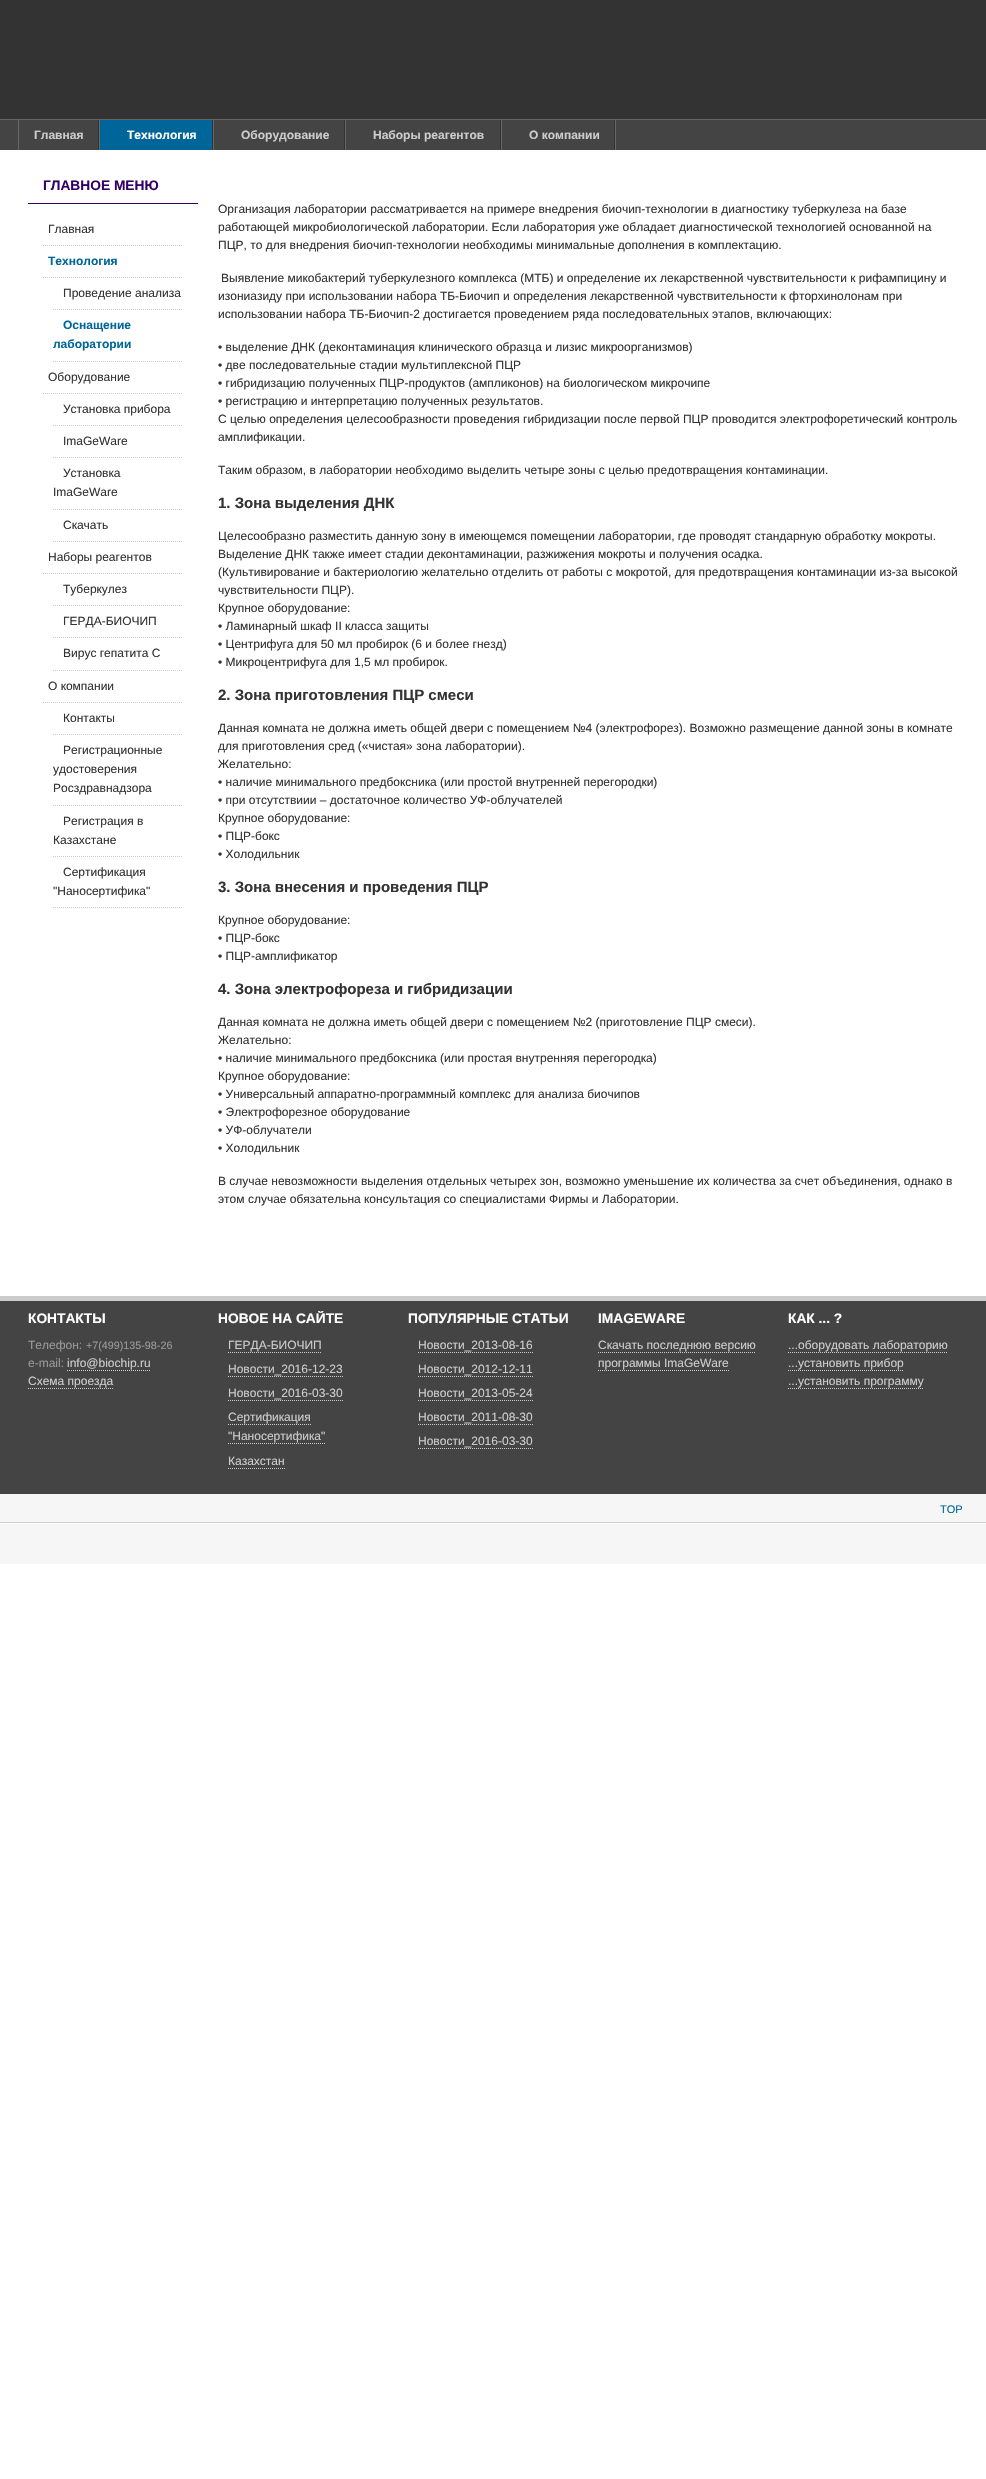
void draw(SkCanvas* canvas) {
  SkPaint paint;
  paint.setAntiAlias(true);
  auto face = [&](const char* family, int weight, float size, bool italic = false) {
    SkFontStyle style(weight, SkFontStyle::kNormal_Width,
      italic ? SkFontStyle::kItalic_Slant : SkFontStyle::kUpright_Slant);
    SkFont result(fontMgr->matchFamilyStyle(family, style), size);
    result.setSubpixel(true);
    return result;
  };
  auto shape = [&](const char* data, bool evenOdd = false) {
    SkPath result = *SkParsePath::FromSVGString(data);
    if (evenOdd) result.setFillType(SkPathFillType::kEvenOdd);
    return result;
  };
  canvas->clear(0xffffffff);
  {
    const struct { float x, y, w, h; SkColor color; } items[] = {
      {0, 0, 986, 119, 0xff333333},
      {0, 120, 986, 30, 0xff444444},
      {0, 119, 986, 1, 0xff666666},
      {615, 120, 1, 30, 0xff666666},
      {98, 120, 1, 30, 0xff333333},
      {18, 120, 1, 30, 0xff666666},
      {100, 120, 112, 30, 0xff006699},
      {212, 120, 1, 30, 0xff333333},
      {99, 120, 1, 30, 0xff666666},
      {344, 120, 1, 30, 0xff333333},
      {213, 120, 1, 30, 0xff666666},
      {500, 120, 1, 30, 0xff333333},
      {345, 120, 1, 30, 0xff666666},
      {614, 120, 1, 30, 0xff333333},
      {501, 120, 1, 30, 0xff666666},
      {0, 1296, 986, 5, 0xffcccccc},
      {28, 203, 170, 1, 0xff330066},
    };
    for (auto [x, y, w, h, color] : items) {
      paint.setColor(color);
      canvas->drawRect(SkRect::MakeXYWH(x, y, w, h), paint);
    }
  }
  paint.setStroke(true);
  paint.setStrokeWidth(1);
  paint.setColor(0xffcccccc);
  paint.setPathEffect(SkDashPathEffect::Make({{1, 1}}, 0));
  canvas->drawPath(shape("M43 245.5H183"), paint);
  paint.setPathEffect(nullptr);
  paint.setPathEffect(SkDashPathEffect::Make({{1, 1}}, 0));
  canvas->drawPath(shape("M43 277.5H183"), paint);
  paint.setPathEffect(nullptr);
  paint.setPathEffect(SkDashPathEffect::Make({{1, 1}}, 0));
  canvas->drawPath(shape("M53 309.5H183"), paint);
  paint.setPathEffect(nullptr);
  paint.setPathEffect(SkDashPathEffect::Make({{1, 1}}, 0));
  canvas->drawPath(shape("M53 361.5H183"), paint);
  paint.setPathEffect(nullptr);
  paint.setPathEffect(SkDashPathEffect::Make({{1, 1}}, 0));
  canvas->drawPath(shape("M43 393.5H183"), paint);
  paint.setPathEffect(nullptr);
  paint.setPathEffect(SkDashPathEffect::Make({{1, 1}}, 0));
  canvas->drawPath(shape("M53 425.5H183"), paint);
  paint.setPathEffect(nullptr);
  paint.setPathEffect(SkDashPathEffect::Make({{1, 1}}, 0));
  canvas->drawPath(shape("M53 457.5H183"), paint);
  paint.setPathEffect(nullptr);
  paint.setPathEffect(SkDashPathEffect::Make({{1, 1}}, 0));
  canvas->drawPath(shape("M53 509.5H183"), paint);
  paint.setPathEffect(nullptr);
  paint.setPathEffect(SkDashPathEffect::Make({{1, 1}}, 0));
  canvas->drawPath(shape("M53 541.5H183"), paint);
  paint.setPathEffect(nullptr);
  paint.setPathEffect(SkDashPathEffect::Make({{1, 1}}, 0));
  canvas->drawPath(shape("M43 573.5H183"), paint);
  paint.setPathEffect(nullptr);
  paint.setPathEffect(SkDashPathEffect::Make({{1, 1}}, 0));
  canvas->drawPath(shape("M53 605.5H183"), paint);
  paint.setPathEffect(nullptr);
  paint.setPathEffect(SkDashPathEffect::Make({{1, 1}}, 0));
  canvas->drawPath(shape("M53 637.5H183"), paint);
  paint.setPathEffect(nullptr);
  paint.setPathEffect(SkDashPathEffect::Make({{1, 1}}, 0));
  canvas->drawPath(shape("M53 670.5H183"), paint);
  paint.setPathEffect(nullptr);
  paint.setPathEffect(SkDashPathEffect::Make({{1, 1}}, 0));
  canvas->drawPath(shape("M43 702.5H183"), paint);
  paint.setPathEffect(nullptr);
  paint.setPathEffect(SkDashPathEffect::Make({{1, 1}}, 0));
  canvas->drawPath(shape("M53 734.5H183"), paint);
  paint.setPathEffect(nullptr);
  paint.setPathEffect(SkDashPathEffect::Make({{1, 1}}, 0));
  canvas->drawPath(shape("M53 805.5H183"), paint);
  paint.setPathEffect(nullptr);
  paint.setPathEffect(SkDashPathEffect::Make({{1, 1}}, 0));
  canvas->drawPath(shape("M53 856.5H183"), paint);
  paint.setPathEffect(nullptr);
  paint.setPathEffect(SkDashPathEffect::Make({{1, 1}}, 0));
  canvas->drawPath(shape("M53 907.5H183"), paint);
  paint.setPathEffect(nullptr);
  paint.setStroke(false);
  paint.setColor(0xff444444);
  canvas->drawRect(SkRect::MakeXYWH(0, 1301, 986, 193), paint);
  paint.setStroke(true);
  paint.setColor(0xffcccccc);
  paint.setPathEffect(SkDashPathEffect::Make({{1, 1}}, 0));
  canvas->drawPath(shape("M67 1370.5H151"), paint);
  paint.setPathEffect(nullptr);
  paint.setPathEffect(SkDashPathEffect::Make({{1, 1}}, 0));
  canvas->drawPath(shape("M28 1388.5H113"), paint);
  paint.setPathEffect(nullptr);
  paint.setPathEffect(SkDashPathEffect::Make({{1, 1}}, 0));
  canvas->drawPath(shape("M228 1352.5H322"), paint);
  paint.setPathEffect(nullptr);
  paint.setPathEffect(SkDashPathEffect::Make({{1, 1}}, 0));
  canvas->drawPath(shape("M228 1376.5H343"), paint);
  paint.setPathEffect(nullptr);
  paint.setPathEffect(SkDashPathEffect::Make({{1, 1}}, 0));
  canvas->drawPath(shape("M228 1400.5H343"), paint);
  paint.setPathEffect(nullptr);
  paint.setPathEffect(SkDashPathEffect::Make({{1, 1}}, 0));
  canvas->drawPath(shape("M228 1424.5H311"), paint);
  paint.setPathEffect(nullptr);
  paint.setPathEffect(SkDashPathEffect::Make({{1, 1}}, 0));
  canvas->drawPath(shape("M228 1443.5H325"), paint);
  paint.setPathEffect(nullptr);
  paint.setPathEffect(SkDashPathEffect::Make({{1, 1}}, 0));
  canvas->drawPath(shape("M228 1468.5H285"), paint);
  paint.setPathEffect(nullptr);
  paint.setPathEffect(SkDashPathEffect::Make({{1, 1}}, 0));
  canvas->drawPath(shape("M418 1352.5H533"), paint);
  paint.setPathEffect(nullptr);
  paint.setPathEffect(SkDashPathEffect::Make({{1, 1}}, 0));
  canvas->drawPath(shape("M418 1376.5H533"), paint);
  paint.setPathEffect(nullptr);
  paint.setPathEffect(SkDashPathEffect::Make({{1, 1}}, 0));
  canvas->drawPath(shape("M418 1400.5H533"), paint);
  paint.setPathEffect(nullptr);
  paint.setPathEffect(SkDashPathEffect::Make({{1, 1}}, 0));
  canvas->drawPath(shape("M418 1424.5H533"), paint);
  paint.setPathEffect(nullptr);
  paint.setPathEffect(SkDashPathEffect::Make({{1, 1}}, 0));
  canvas->drawPath(shape("M418 1448.5H533"), paint);
  paint.setPathEffect(nullptr);
  paint.setPathEffect(SkDashPathEffect::Make({{1, 1}}, 0));
  canvas->drawPath(shape("M598 1352.5H756"), paint);
  paint.setPathEffect(nullptr);
  paint.setPathEffect(SkDashPathEffect::Make({{1, 1}}, 0));
  canvas->drawPath(shape("M598 1370.5H729"), paint);
  paint.setPathEffect(nullptr);
  paint.setPathEffect(SkDashPathEffect::Make({{1, 1}}, 0));
  canvas->drawPath(shape("M788 1352.5H948"), paint);
  paint.setPathEffect(nullptr);
  paint.setPathEffect(SkDashPathEffect::Make({{1, 1}}, 0));
  canvas->drawPath(shape("M788 1370.5H904"), paint);
  paint.setPathEffect(nullptr);
  paint.setPathEffect(SkDashPathEffect::Make({{1, 1}}, 0));
  canvas->drawPath(shape("M788 1388.5H924"), paint);
  paint.setPathEffect(nullptr);
  paint.setStroke(false);
  {
    const struct { float x, y, w, h; SkColor color; } items[] = {
      {0, 1494, 986, 28, 0xfff6f6f6},
      {0, 1522, 986, 1, 0xffcccccc},
      {0, 1524, 986, 40, 0xfff6f6f6},
    };
    for (auto [x, y, w, h, color] : items) {
      paint.setColor(color);
      canvas->drawRect(SkRect::MakeXYWH(x, y, w, h), paint);
    }
  }
  auto f0 = face("Liberation Sans", 700, 12);
  paint.setColor(0xffcccccc);
  canvas->drawString("Главная", 34, 139, f0, paint);
  paint.setColor(0xffffffff);
  canvas->drawString("Технология", 127, 139, f0, paint);
  paint.setColor(0xffcccccc);
  {
    const struct { const char* s; float x, y; } items[] = {
      {"Оборудование", 241, 139},
      {"Наборы реагентов", 373, 139},
      {"О компании", 529, 139},
    };
    for (auto [s, x, y] : items) {
      canvas->drawString(s, x, y, f0, paint);
    }
  }
  auto f1 = face("Liberation Sans", 700, 13.75f);
  paint.setColor(0xff330066);
  canvas->drawString("ГЛАВНOЕ МЕНЮ", 43, 190, f1, paint);
  auto f2 = face("Liberation Sans", 400, 12);
  paint.setColor(0xff333333);
  canvas->drawString("Главная", 48, 233, f2, paint);
  paint.setColor(0xff006699);
  canvas->drawString("Технология", 48, 265, f0, paint);
  paint.setColor(0xff333333);
  canvas->drawString("Проведение анализа", 63, 297, f2, paint);
  paint.setColor(0xff006699);
  canvas->drawString("Оснащение", 63, 329, f0, paint);
  canvas->drawString("лаборатории", 53, 348, f0, paint);
  paint.setColor(0xff333333);
  {
    const struct { const char* s; float x, y; } items[] = {
      {"Оборудование", 48, 381},
      {"Установка прибора", 63, 413},
      {"ImaGeWare", 63, 445},
      {"Установка", 63, 477},
      {"ImaGeWare", 53, 496},
      {"Скачать", 63, 529},
      {"Наборы реагентов", 48, 561},
      {"Туберкулез", 63, 593},
      {"ГЕРДА-БИОЧИП", 63, 625},
      {"Вирус гепатита C", 63, 657},
      {"О компании", 48, 690},
      {"Контакты", 63, 722},
      {"Регистрационные", 63, 754},
      {"удостоверения", 53, 773},
      {"Росздравнадзора", 53, 792},
      {"Регистрация в", 63, 825},
      {"Казахстане", 53, 844},
      {"Сертификация", 63, 876},
      {"\"Наносертифика\"", 53, 895},
      {"Организация лаборатории рассматривается на примере внедрения биочип-технологии в диагностику туберкулеза на базе", 218, 213},
      {"работающей микробиологической лаборатории. Если лаборатория уже обладает диагностической технологией основанной на", 218, 231},
      {"ПЦР, то для внедрения биочип-технологии необходимы минимальные дополнения в комплектацию.", 218, 249},
      {"Выявление микобактерий туберкулезного комплекса (МТБ) и определение их лекарственной чувствительности к рифампицину и", 221, 282},
      {"изониазиду при использовании набора ТБ-Биочип и определения лекарственной чувствительности к фторхинолонам при", 218, 300},
      {"использовании набора ТБ-Биочип-2 достигается проведением ряда последовательных этапов, включающих:", 218, 318},
      {"• выделение ДНК (деконтаминация клинического образца и лизис микроорганизмов)", 218, 351},
      {"• две последовательные стадии мультиплексной ПЦР", 218, 369},
      {"• гибридизацию полученных ПЦР-продуктов (ампликонов) на биологическом микрочипе", 218, 387},
      {"• регистрацию и интерпретацию полученных результатов.", 218, 405},
      {"С целью определения целесообразности проведения гибридизации после первой ПЦР проводится электрофоретический контроль", 218, 423},
      {"амплификации.", 218, 441},
      {"Таким образом, в лаборатории необходимо выделить четыре зоны с целью предотвращения контаминации.", 218, 474},
    };
    for (auto [s, x, y] : items) {
      canvas->drawString(s, x, y, f2, paint);
    }
  }
  auto f3 = face("Liberation Sans", 700, 15);
  canvas->drawString("1. Зона выделения ДНК", 218, 508, f3, paint);
  {
    const struct { const char* s; float x, y; } items[] = {
      {"Целесообразно разместить данную зону в имеющемся помещении лаборатории, где проводят стандарную обработку мокроты.", 218, 540},
      {"Выделение ДНК также имеет стадии деконтаминации, разжижения мокроты и получения осадка.", 218, 558},
      {"(Культивирование и бактериологию желательно отделить от работы с мокротой, для предотвращения контаминации из-за высокой", 218, 576},
      {"чувствительности ПЦР).", 218, 594},
      {"Крупное оборудование:", 218, 612},
      {"• Ламинарный шкаф II класса защиты", 218, 630},
      {"• Центрифуга для 50 мл пробирок (6 и более гнезд)", 218, 648},
      {"• Микроцентрифуга для 1,5 мл пробирок.", 218, 666},
    };
    for (auto [s, x, y] : items) {
      canvas->drawString(s, x, y, f2, paint);
    }
  }
  canvas->drawString("2. Зона приготовления ПЦР смеси", 218, 700, f3, paint);
  {
    const struct { const char* s; float x, y; } items[] = {
      {"Данная комната не должна иметь общей двери с помещением №4 (электрофорез). Возможно размещение данной зоны в комнате", 218, 732},
      {"для приготовления сред («чистая» зона лаборатории).", 218, 750},
      {"Желательно:", 218, 768},
      {"• наличие минимального предбоксника (или простой внутренней перегородки)", 218, 786},
      {"• при отсутствиии – достаточное количество УФ-облучателей", 218, 804},
      {"Крупное оборудование:", 218, 822},
      {"• ПЦР-бокс", 218, 840},
      {"• Холодильник", 218, 858},
    };
    for (auto [s, x, y] : items) {
      canvas->drawString(s, x, y, f2, paint);
    }
  }
  canvas->drawString("3. Зона внесения и проведения ПЦР", 218, 892, f3, paint);
  {
    const struct { const char* s; float x, y; } items[] = {
      {"Крупное оборудование:", 218, 924},
      {"• ПЦР-бокс", 218, 942},
      {"• ПЦР-амплификатор", 218, 960},
    };
    for (auto [s, x, y] : items) {
      canvas->drawString(s, x, y, f2, paint);
    }
  }
  canvas->drawString("4. Зона электрофореза и гибридизации", 218, 994, f3, paint);
  {
    const struct { const char* s; float x, y; } items[] = {
      {"Данная комната не должна иметь общей двери с помещением №2 (приготовление ПЦР смеси).", 218, 1026},
      {"Желательно:", 218, 1044},
      {"• наличие минимального предбоксника (или простая внутренняя перегородка)", 218, 1062},
      {"Крупное оборудование:", 218, 1080},
      {"• Универсальный аппаратно-программный комплекс для анализа биочипов", 218, 1098},
      {"• Электрофорезное оборудование", 218, 1116},
      {"• УФ-облучатели", 218, 1134},
      {"• Холодильник", 218, 1152},
      {"В случае невозможности выделения отдельных четырех зон, возможно уменьшение их количества за счет объединения, однако в", 218, 1185},
      {"этом случае обязательна консультация со специалистами Фирмы и Лаборатории.", 218, 1203},
    };
    for (auto [s, x, y] : items) {
      canvas->drawString(s, x, y, f2, paint);
    }
  }
  paint.setColor(0xffffffff);
  canvas->drawString("КОНТАКТЫ", 28, 1323, f1, paint);
  paint.setColor(0xff999999);
  canvas->drawString("Телефон:", 28, 1349, f2, paint);
  auto f4 = face("Liberation Sans", 400, 10.75f);
  canvas->drawString("+7(499)135-98-26", 86, 1349, f4, paint);
  canvas->drawString("e-mail:", 28, 1367, f2, paint);
  paint.setColor(0xffcccccc);
  canvas->drawString("info@biochip.ru", 67, 1367, f2, paint);
  canvas->drawString("Схема проезда", 28, 1385, f2, paint);
  canvas->save();
  canvas->clipRect(SkRect::MakeXYWH(218, 1311, 170, 17));
  paint.setColor(0xffffffff);
  canvas->drawString("НОВОЕ НА САЙТЕ", 218, 1323, f1, paint);
  canvas->restore();
  paint.setColor(0xffcccccc);
  {
    const struct { const char* s; float x, y; } items[] = {
      {"ГЕРДА-БИОЧИП", 228, 1349},
      {"Новости_2016-12-23", 228, 1373},
      {"Новости_2016-03-30", 228, 1397},
      {"Сертификация", 228, 1421},
      {"\"Наносертифика\"", 228, 1440},
      {"Казахстан", 228, 1465},
    };
    for (auto [s, x, y] : items) {
      canvas->drawString(s, x, y, f2, paint);
    }
  }
  paint.setColor(0xffffffff);
  canvas->drawString("ПОПУЛЯРНЫЕ СТАТЬИ", 408, 1323, f1, paint);
  paint.setColor(0xffcccccc);
  {
    const struct { const char* s; float x, y; } items[] = {
      {"Новости_2013-08-16", 418, 1349},
      {"Новости_2012-12-11", 418, 1373},
      {"Новости_2013-05-24", 418, 1397},
      {"Новости_2011-08-30", 418, 1421},
      {"Новости_2016-03-30", 418, 1445},
    };
    for (auto [s, x, y] : items) {
      canvas->drawString(s, x, y, f2, paint);
    }
  }
  paint.setColor(0xffffffff);
  canvas->drawString("IMAGEWARE", 598, 1323, f1, paint);
  paint.setColor(0xffcccccc);
  canvas->drawString("Скачать последнюю версию", 598, 1349, f2, paint);
  canvas->drawString("программы ImaGeWare", 598, 1367, f2, paint);
  paint.setColor(0xffffffff);
  canvas->drawString("КАК ... ?", 788, 1323, f1, paint);
  paint.setColor(0xffcccccc);
  {
    const struct { const char* s; float x, y; } items[] = {
      {"...оборудовать лабораторию", 788, 1349},
      {"...установить прибор", 788, 1367},
      {"...установить программу", 788, 1385},
    };
    for (auto [s, x, y] : items) {
      canvas->drawString(s, x, y, f2, paint);
    }
  }
  auto f5 = face("Liberation Sans", 400, 11);
  paint.setColor(0xff006699);
  canvas->drawString("TOP", 940, 1513, f5, paint);
}
